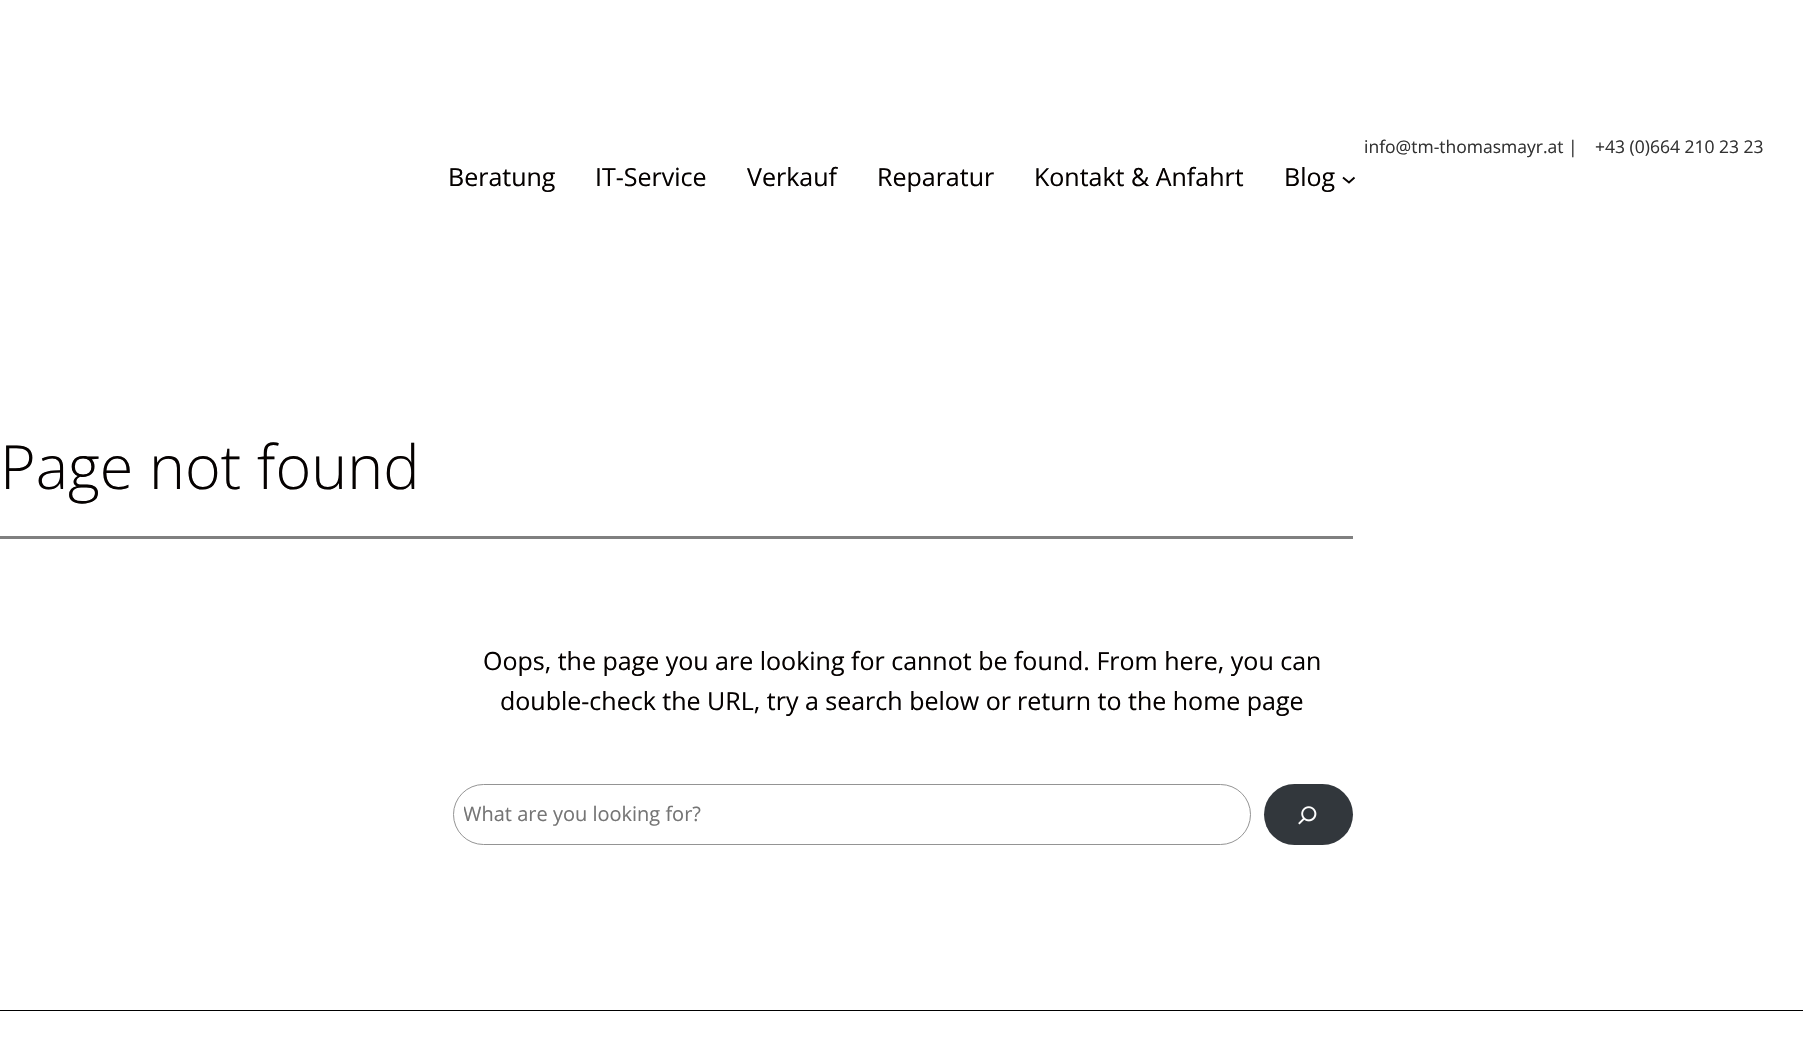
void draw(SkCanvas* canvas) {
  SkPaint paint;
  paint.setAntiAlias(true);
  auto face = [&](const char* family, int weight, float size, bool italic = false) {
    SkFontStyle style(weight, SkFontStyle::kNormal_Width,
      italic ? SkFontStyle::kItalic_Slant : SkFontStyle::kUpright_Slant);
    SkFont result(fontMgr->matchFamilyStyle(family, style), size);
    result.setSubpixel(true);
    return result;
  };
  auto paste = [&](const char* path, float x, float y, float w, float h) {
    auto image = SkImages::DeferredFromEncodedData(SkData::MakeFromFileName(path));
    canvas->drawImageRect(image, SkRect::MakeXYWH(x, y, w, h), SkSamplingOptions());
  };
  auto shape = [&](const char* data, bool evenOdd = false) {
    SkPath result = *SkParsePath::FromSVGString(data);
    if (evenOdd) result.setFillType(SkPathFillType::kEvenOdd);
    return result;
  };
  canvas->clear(0xffffffff);
  paint.setStroke(true);
  paint.setStrokeWidth(1.9f);
  paint.setColor(0xff050100);
  canvas->drawPath(shape("M1343 177.5L1349 182.5L1354.5 177.5"), paint);
  paint.setStroke(false);
  paint.setColor(0xff808080);
  canvas->drawRect(SkRect::MakeXYWH(0, 536, 1353, 3), paint);
  paint.setStroke(true);
  paint.setStrokeWidth(1);
  paint.setColor(0xff949494);
  canvas->drawRoundRect(SkRect::MakeXYWH(453.5f, 784.5f, 797, 60), 30, 30, paint);
  paint.setStroke(false);
  paint.setColor(0xff32373c);
  canvas->drawRoundRect(SkRect::MakeXYWH(1264, 784, 89, 61), 30.5f, 30.5f, paint);
  paste("img/1.png", 1298, 806, 19, 19);
  paint.setColor(0xff000000);
  canvas->drawRect(SkRect::MakeXYWH(0, 1010, 1803, 1), paint);
  auto f0 = face("Open Sans", 400, 17.5f);
  paint.setColor(0xff333333);
  canvas->drawString("info@tm-thomasmayr.at |", 1364, 153, f0, paint);
  canvas->drawString("+43 (0)664 210 23 23", 1595, 153, f0, paint);
  auto f1 = face("Open Sans", 400, 25);
  paint.setColor(0xff050100);
  {
    const struct { const char* s; float x, y; } items[] = {
      {"Beratung", 448, 186},
      {"IT-Service", 595, 186},
      {"Verkauf", 747, 186},
      {"Reparatur", 877, 186},
      {"Kontakt & Anfahrt", 1034, 186},
      {"Blog", 1284, 186},
    };
    for (auto [s, x, y] : items) {
      canvas->drawString(s, x, y, f1, paint);
    }
  }
  auto f2 = face("Open Sans", 300, 61);
  canvas->drawString("Page not found", 0, 489, f2, paint);
  {
    const struct { const char* s; float x, y; } items[] = {
      {"Oops, the page you are looking for cannot be found. From here, you can", 483, 670},
      {"double-check the URL, try a search below or", 500, 710},
      {"return to the home page", 1017, 710},
    };
    for (auto [s, x, y] : items) {
      canvas->drawString(s, x, y, f1, paint);
    }
  }
  canvas->save();
  canvas->clipRect(SkRect::MakeXYWH(464, 800, 757, 28));
  auto f3 = face("Open Sans", 400, 20);
  paint.setColor(0xff757575);
  canvas->drawString("What are you looking for?", 463, 821, f3, paint);
  canvas->restore();
}
